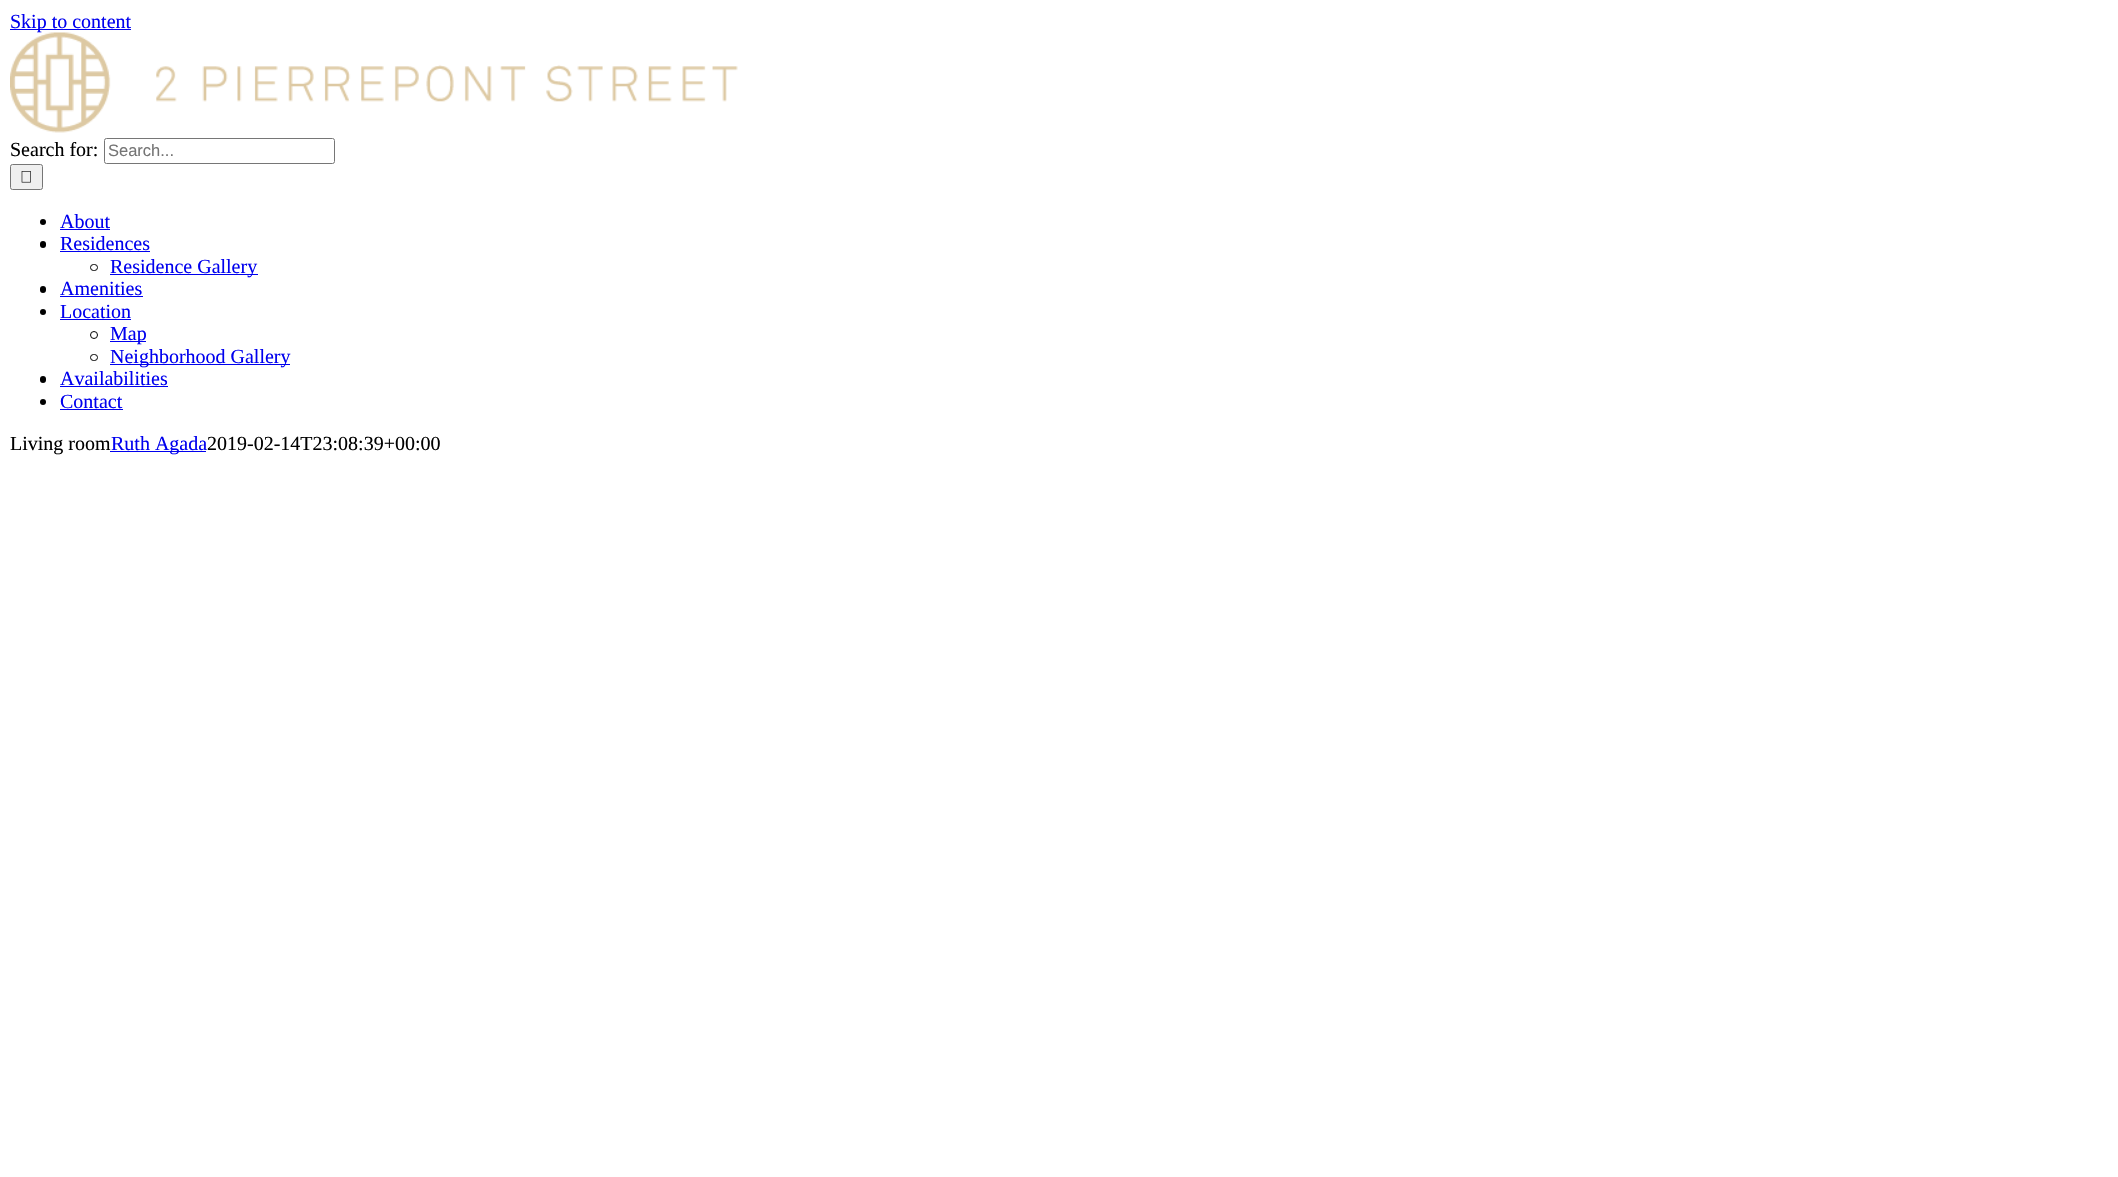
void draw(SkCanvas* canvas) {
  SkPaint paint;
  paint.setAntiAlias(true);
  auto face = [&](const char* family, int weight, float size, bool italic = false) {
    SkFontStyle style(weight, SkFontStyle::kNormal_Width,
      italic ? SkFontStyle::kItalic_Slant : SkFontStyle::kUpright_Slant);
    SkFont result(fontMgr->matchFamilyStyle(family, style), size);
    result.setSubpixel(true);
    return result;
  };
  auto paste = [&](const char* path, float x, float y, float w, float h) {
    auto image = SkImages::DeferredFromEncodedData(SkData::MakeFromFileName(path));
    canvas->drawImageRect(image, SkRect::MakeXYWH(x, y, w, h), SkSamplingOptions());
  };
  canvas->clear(0xffffffff);
  paint.setColor(0xff0000ee);
  canvas->drawRect(SkRect::MakeXYWH(10, 29, 121, 1), paint);
  paint.setStroke(true);
  paint.setStrokeWidth(1);
  paint.setColor(0xff767676);
  canvas->drawRoundRect(SkRect::MakeXYWH(104.5f, 138.5f, 230, 25), 2, 2, paint);
  paint.setStroke(false);
  paint.setColor(0xffefefef);
  canvas->drawRoundRect(SkRect::MakeXYWH(10.5f, 164.5f, 32, 25), 2, 2, paint);
  paint.setStroke(true);
  paint.setColor(0xff767676);
  canvas->drawRoundRect(SkRect::MakeXYWH(10.5f, 164.5f, 32, 25), 2, 2, paint);
  paste("img/2.png", 21, 171, 10, 12);
  paint.setStroke(false);
  paint.setColor(0xff000000);
  canvas->drawCircle(43, 222, 3, paint);
  paint.setColor(0xff0000ee);
  canvas->drawRect(SkRect::MakeXYWH(60, 229, 50, 1), paint);
  paint.setColor(0xff000000);
  canvas->drawRoundRect(SkRect::MakeXYWH(40, 241, 6, 7), 3, 3, paint);
  paint.setColor(0xff0000ee);
  canvas->drawRect(SkRect::MakeXYWH(60, 251, 90, 1), paint);
  paint.setStroke(true);
  paint.setColor(0xff000000);
  canvas->drawRoundRect(SkRect::MakeXYWH(90.5f, 264.5f, 7, 6), 3, 3, paint);
  paint.setStroke(false);
  paint.setColor(0xff0000ee);
  canvas->drawRect(SkRect::MakeXYWH(110, 274, 148, 1), paint);
  paint.setColor(0xff000000);
  canvas->drawRoundRect(SkRect::MakeXYWH(40, 286, 6, 7), 3, 3, paint);
  paint.setColor(0xff0000ee);
  canvas->drawRect(SkRect::MakeXYWH(60, 296, 83, 1), paint);
  paint.setColor(0xff000000);
  canvas->drawCircle(43, 312, 3, paint);
  paint.setColor(0xff0000ee);
  canvas->drawRect(SkRect::MakeXYWH(60, 319, 71, 1), paint);
  paint.setStroke(true);
  paint.setColor(0xff000000);
  canvas->drawCircle(94, 335, 3.5f, paint);
  paint.setStroke(false);
  paint.setColor(0xff0000ee);
  canvas->drawRect(SkRect::MakeXYWH(110, 341, 36, 1), paint);
  paint.setStroke(true);
  paint.setColor(0xff000000);
  canvas->drawRoundRect(SkRect::MakeXYWH(90.5f, 354.5f, 7, 6), 3, 3, paint);
  paint.setStroke(false);
  paint.setColor(0xff0000ee);
  canvas->drawRect(SkRect::MakeXYWH(110, 364, 180, 1), paint);
  paint.setColor(0xff000000);
  canvas->drawRoundRect(SkRect::MakeXYWH(40, 376, 6, 7), 3, 3, paint);
  paint.setColor(0xff0000ee);
  canvas->drawRect(SkRect::MakeXYWH(60, 386, 108, 1), paint);
  paint.setColor(0xff000000);
  canvas->drawCircle(43, 402, 3, paint);
  paint.setColor(0xff0000ee);
  canvas->drawRect(SkRect::MakeXYWH(60, 409, 63, 1), paint);
  auto f0 = face("Liberation Serif", 400, 20);
  canvas->drawString("Skip to content", 10, 28, f0, paint);
  paste("img/1.png", 10, 32, 728, 101);
  paint.setColor(0xff000000);
  canvas->drawString("Search for:", 10, 156, f0, paint);
  auto f1 = face("Liberation Sans", 400, 16.5f);
  paint.setColor(0xff757575);
  canvas->drawString("Search...", 108, 156, f1, paint);
  paint.setColor(0xff0000ee);
  {
    const struct { const char* s; float x, y; } items[] = {
      {"About", 60, 228},
      {"Residences", 60, 250},
      {"Residence Gallery", 110, 273},
      {"Amenities", 60, 295},
      {"Location", 60, 318},
      {"Map", 110, 340},
      {"Neighborhood Gallery", 110, 363},
      {"Availabilities", 60, 385},
      {"Contact", 60, 408},
    };
    for (auto [s, x, y] : items) {
      canvas->drawString(s, x, y, f0, paint);
    }
  }
  paint.setColor(0xff000000);
  canvas->drawString("Living room", 10, 450, f0, paint);
  paint.setColor(0xff0000ee);
  canvas->drawRect(SkRect::MakeXYWH(110, 451, 96, 1), paint);
  canvas->drawString("Ruth Agada", 111, 450, f0, paint);
  paint.setColor(0xff000000);
  canvas->drawString("2019-02-14T23:08:39+00:00", 207, 450, f0, paint);
}
